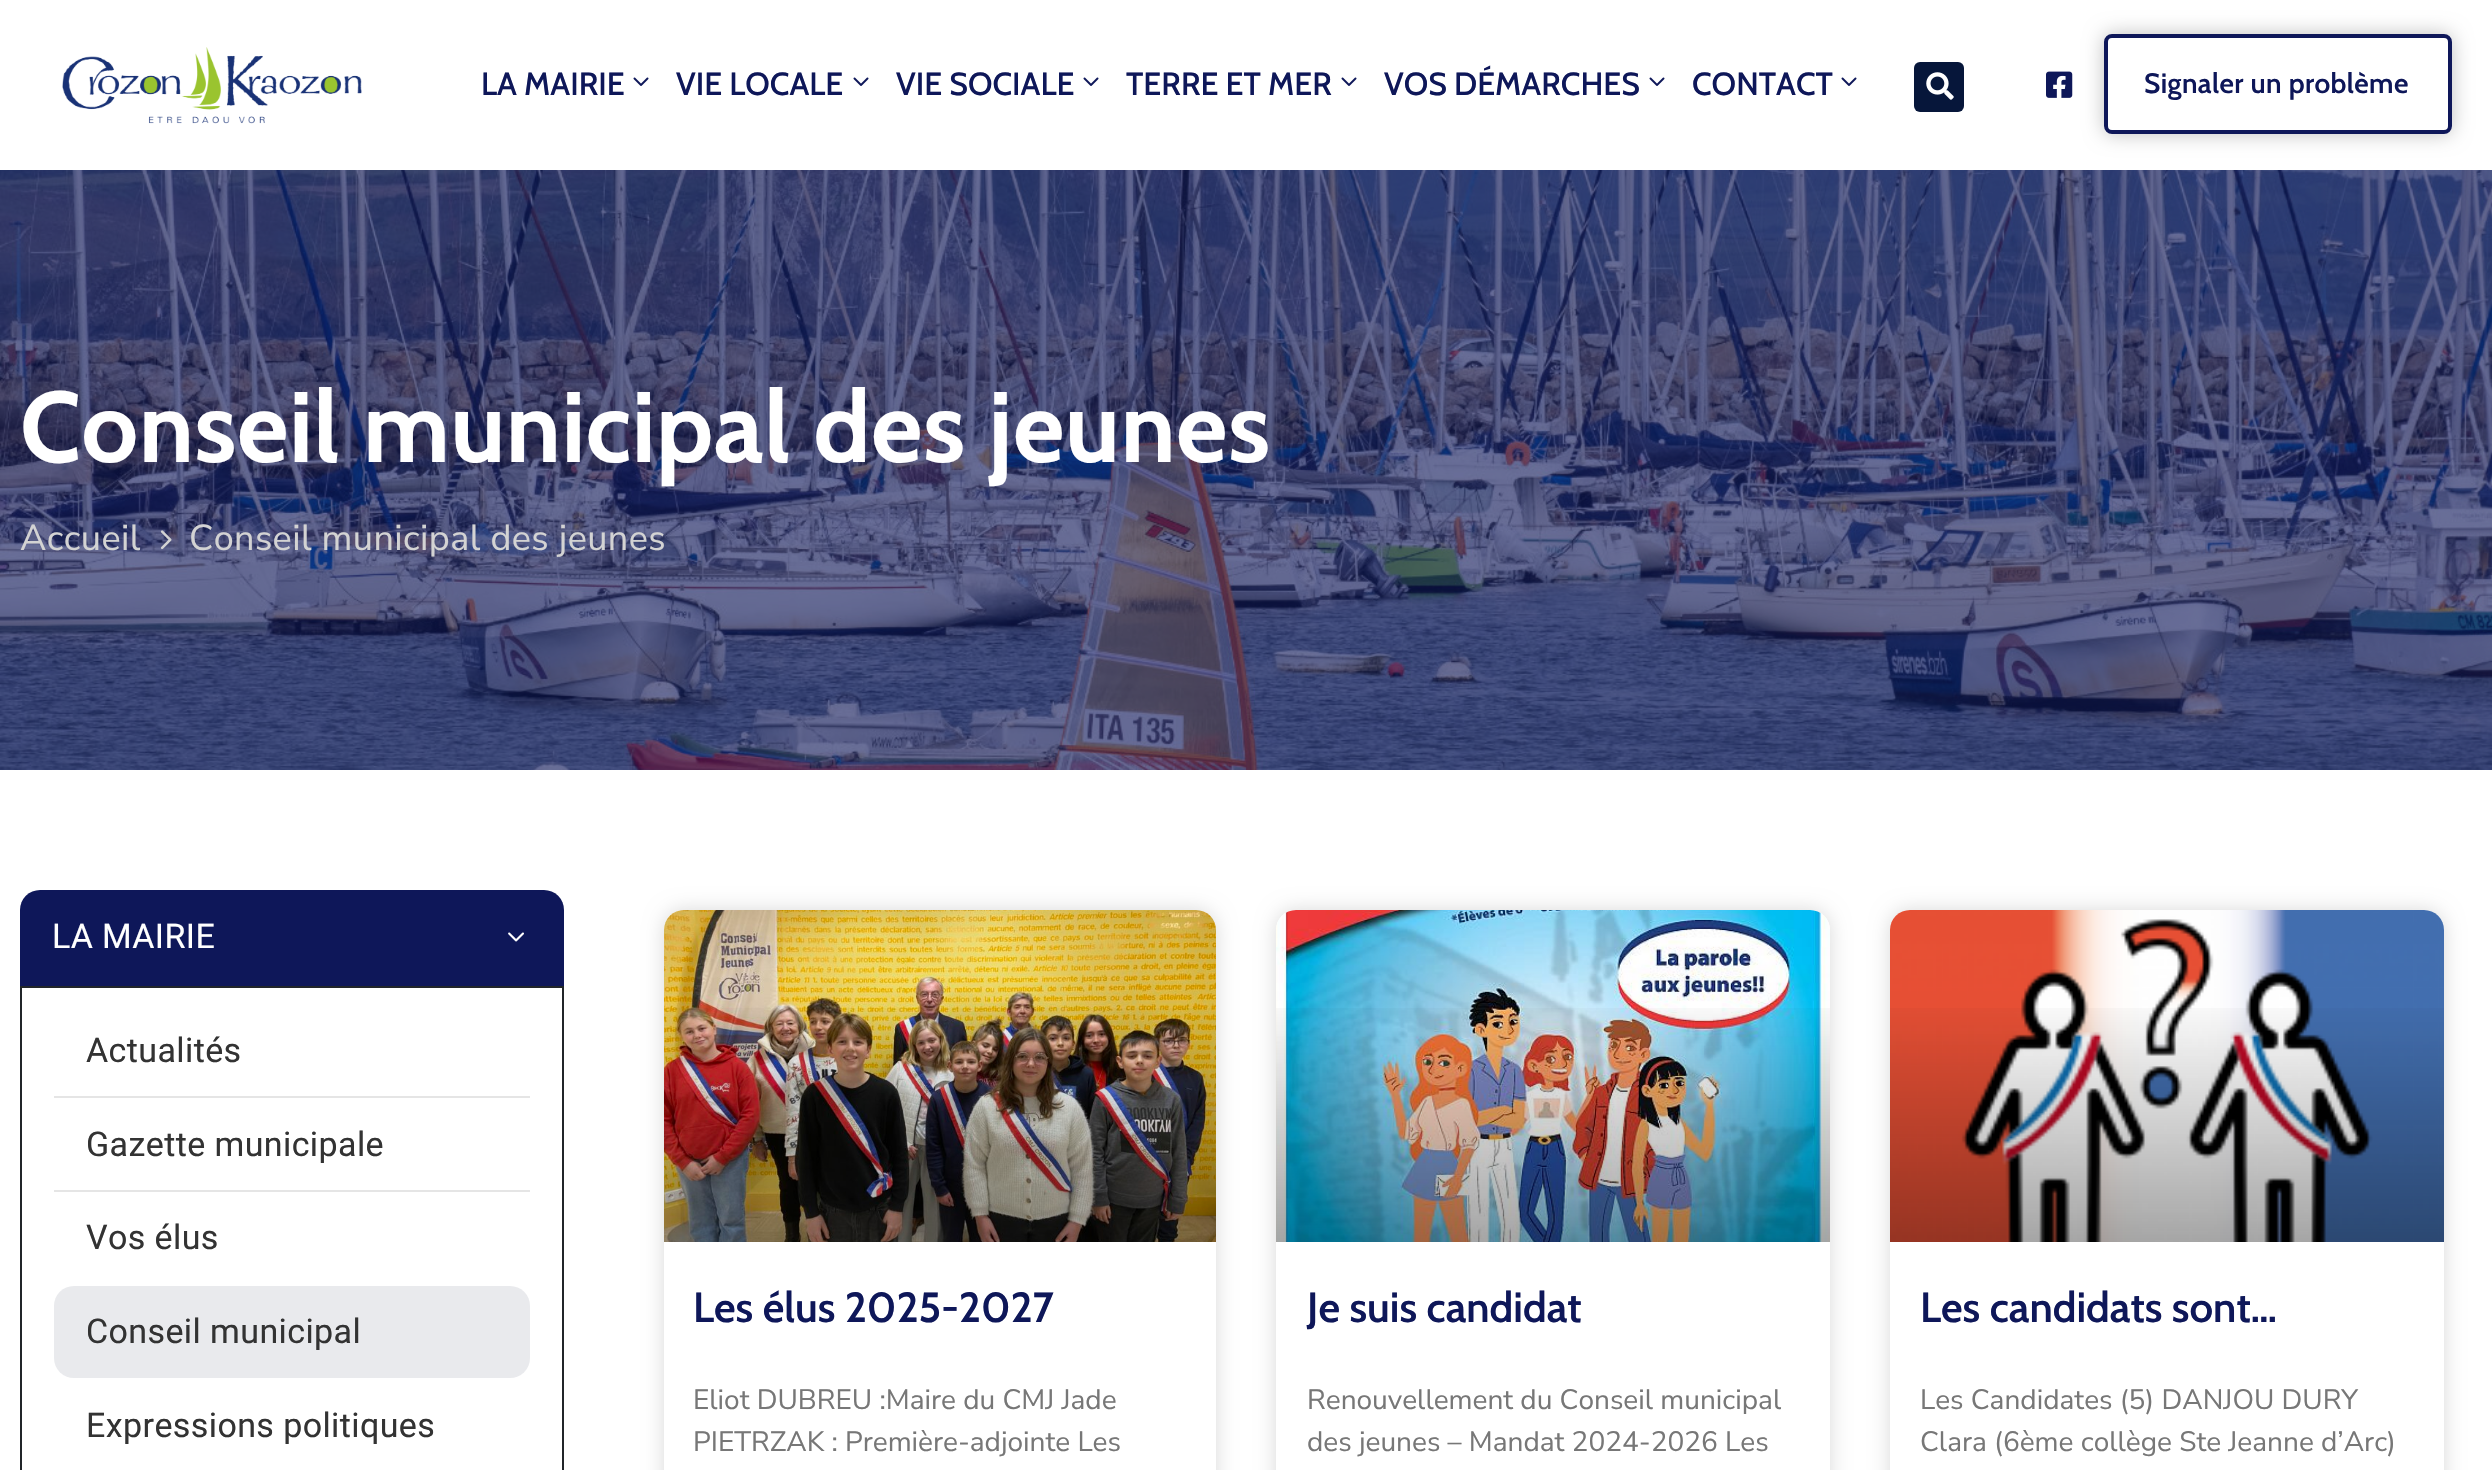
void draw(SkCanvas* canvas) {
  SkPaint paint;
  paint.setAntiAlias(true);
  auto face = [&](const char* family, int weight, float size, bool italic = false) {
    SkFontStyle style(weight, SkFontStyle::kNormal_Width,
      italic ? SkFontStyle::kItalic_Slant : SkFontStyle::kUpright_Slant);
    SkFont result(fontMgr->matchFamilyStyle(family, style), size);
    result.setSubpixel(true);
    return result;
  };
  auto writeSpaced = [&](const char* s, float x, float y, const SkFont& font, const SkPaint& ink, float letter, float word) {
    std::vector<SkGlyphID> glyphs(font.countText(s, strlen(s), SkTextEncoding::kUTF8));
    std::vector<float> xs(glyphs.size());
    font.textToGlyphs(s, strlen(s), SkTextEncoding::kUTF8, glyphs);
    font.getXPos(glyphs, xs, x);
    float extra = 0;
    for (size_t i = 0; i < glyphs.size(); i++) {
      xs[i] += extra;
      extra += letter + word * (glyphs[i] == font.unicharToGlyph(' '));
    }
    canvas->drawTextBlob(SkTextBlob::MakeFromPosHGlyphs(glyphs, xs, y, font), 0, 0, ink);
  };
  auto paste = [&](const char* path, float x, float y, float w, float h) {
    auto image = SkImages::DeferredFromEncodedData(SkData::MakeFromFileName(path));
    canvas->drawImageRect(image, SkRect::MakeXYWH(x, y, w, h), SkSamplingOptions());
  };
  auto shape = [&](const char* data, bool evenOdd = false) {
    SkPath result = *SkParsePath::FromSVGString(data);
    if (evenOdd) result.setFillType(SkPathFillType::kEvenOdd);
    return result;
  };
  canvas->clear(0xffffffff);
  paste("img/1.png", 62, 47, 300, 77);
  paste("img/2.png", 633, 77, 16, 9);
  paste("img/2.png", 853, 77, 16, 9);
  paste("img/2.png", 1083, 77, 16, 9);
  paste("img/2.png", 1341, 77, 16, 9);
  paste("img/2.png", 1649, 77, 16, 9);
  paste("img/2.png", 1841, 77, 16, 9);
  paint.setColor(0xff06163a);
  canvas->drawRoundRect(SkRect::MakeXYWH(1914, 62, 50, 50), 6, 6, paint);
  paste("img/3.png", 1926, 72, 28, 28);
  paste("img/4.png", 2046, 71, 27, 27);
  canvas->save();
  canvas->clipPath(shape("M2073 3H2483V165H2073ZM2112 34H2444C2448.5 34 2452 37.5 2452 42V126C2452 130.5 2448.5 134 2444 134H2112C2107.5 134 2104 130.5 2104 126V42C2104 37.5 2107.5 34 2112 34Z", true), true);
  paint.setColor(0x40000000);
  paint.setMaskFilter(SkMaskFilter::MakeBlur(kNormal_SkBlurStyle, 10));
  canvas->drawRoundRect(SkRect::MakeXYWH(2104, 34, 348, 100), 8, 8, paint);
  paint.setMaskFilter(nullptr);
  canvas->restore();
  paint.setStroke(true);
  paint.setStrokeWidth(4);
  paint.setColor(0xff0e1759);
  canvas->drawRoundRect(SkRect::MakeXYWH(2106, 36, 344, 96), 6, 6, paint);
  paste("img/5.png", 0, 170, 2492, 600);
  paste("img/6.png", 160, 530, 12, 20);
  paint.setStroke(false);
  canvas->drawRoundRect(SkRect::MakeXYWH(20, 890, 544, 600), 20, 20, paint);
  paste("img/7.png", 508, 932, 16, 10);
  paint.setColor(0xffffffff);
  canvas->drawRect(SkRect::MakeXYWH(21, 987, 542, 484), paint);
  paint.setStroke(true);
  paint.setStrokeWidth(2);
  paint.setColor(0xff212529);
  canvas->drawRect(SkRect::MakeXYWH(21, 987, 542, 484), paint);
  paint.setStroke(false);
  paint.setColor(0xffe5e5e5);
  canvas->drawRect(SkRect::MakeXYWH(54, 1096, 476, 2), paint);
  canvas->drawRect(SkRect::MakeXYWH(54, 1190, 476, 2), paint);
  paint.setColor(0xffe9eaed);
  canvas->drawRoundRect(SkRect::MakeXYWH(54, 1286, 476, 92), 20, 20, paint);
  paint.setColor(0x26000000);
  paint.setMaskFilter(SkMaskFilter::MakeBlur(kNormal_SkBlurStyle, 10));
  canvas->drawRoundRect(SkRect::MakeXYWH(664, 910, 552, 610), 20, 20, paint);
  paint.setMaskFilter(nullptr);
  paint.setColor(0xffffffff);
  canvas->drawRoundRect(SkRect::MakeXYWH(664, 910, 552, 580), 20, 20, paint);
  paste("img/8.png", 664, 910, 552, 332);
  {
    const SkColor colors[] = {0x59000000, 0x00000000};
    const float stops[] = {0, 0.75f};
    const SkPoint ends[] = {{940, 1242}, {940, 910}};
    paint.setShader(SkGradientShader::MakeLinear(ends, colors, stops, 2, SkTileMode::kClamp));
    paint.setAlpha(255);
  }
  canvas->drawRect(SkRect::MakeXYWH(664, 1008, 552, 234), paint);
  paint.setShader(nullptr);
  paint.setColor(0x26000000);
  paint.setMaskFilter(SkMaskFilter::MakeBlur(kNormal_SkBlurStyle, 10));
  canvas->drawRoundRect(SkRect::MakeXYWH(1276, 910, 554, 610), 20, 20, paint);
  paint.setMaskFilter(nullptr);
  paint.setColor(0xffffffff);
  canvas->drawRoundRect(SkRect::MakeXYWH(1276, 910, 554, 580), 20, 20, paint);
  paste("img/9.png", 1276, 910, 554, 332);
  {
    const SkColor colors[] = {0x59000000, 0x00000000};
    const float stops[] = {0, 0.75f};
    const SkPoint ends[] = {{1553, 1242}, {1553, 910}};
    paint.setShader(SkGradientShader::MakeLinear(ends, colors, stops, 2, SkTileMode::kClamp));
    paint.setAlpha(255);
  }
  canvas->drawRect(SkRect::MakeXYWH(1276, 1008, 554, 234), paint);
  paint.setShader(nullptr);
  paint.setColor(0x26000000);
  paint.setMaskFilter(SkMaskFilter::MakeBlur(kNormal_SkBlurStyle, 10));
  canvas->drawRoundRect(SkRect::MakeXYWH(1890, 910, 554, 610), 20, 20, paint);
  paint.setMaskFilter(nullptr);
  paint.setColor(0xffffffff);
  canvas->drawRoundRect(SkRect::MakeXYWH(1890, 910, 554, 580), 20, 20, paint);
  paste("img/10.png", 1890, 910, 554, 332);
  {
    const SkColor colors[] = {0x59000000, 0x00000000};
    const float stops[] = {0, 0.75f};
    const SkPoint ends[] = {{2167, 1242}, {2167, 910}};
    paint.setShader(SkGradientShader::MakeLinear(ends, colors, stops, 2, SkTileMode::kClamp));
    paint.setAlpha(255);
  }
  canvas->drawRect(SkRect::MakeXYWH(1890, 1008, 554, 234), paint);
  auto f0 = face("Cabin", 500, 32);
  paint.setShader(nullptr);
  paint.setColor(0xff0e1759);
  {
    const struct { const char* s; float x, y; } items[] = {
      {"LA MAIRIE", 481, 95},
      {"VIE LOCALE", 676, 95},
      {"VIE SOCIALE", 896, 95},
      {"TERRE ET MER", 1126, 95},
      {"VOS DÉMARCHES", 1384, 95},
      {"CONTACT", 1692, 95},
    };
    for (auto [s, x, y] : items) {
      canvas->drawString(s, x, y, f0, paint);
    }
  }
  auto f1 = face("Cabin", 600, 28);
  writeSpaced("Signaler un problème", 2144, 93, f1, paint, 0.4f, 0);
  auto f2 = face("Cabin", 700, 100);
  paint.setColor(0xffffffff);
  writeSpaced("Conseil municipal des jeunes", 20, 462, f2, paint, 0.4f, 0);
  auto f3 = face("Nunito Sans", 400, 36);
  paint.setColor(0xffd3d3d3);
  writeSpaced("Accueil", 20, 550, f3, paint, 0.4f, 0);
  writeSpaced("Conseil municipal des jeunes", 189, 550, f3, paint, 0.4f, 0);
  auto f4 = face("Roboto", 400, 34);
  paint.setColor(0xffffffff);
  writeSpaced("LA MAIRIE", 52, 948, f4, paint, 0.4f, 0);
  paint.setColor(0xff333333);
  {
    const struct { const char* s; float x, y; } items[] = {
      {"Actualités", 86, 1062},
      {"Gazette municipale", 86, 1156},
      {"Vos élus", 86, 1249},
      {"Conseil municipal", 86, 1343},
      {"Expressions politiques", 86, 1437},
    };
    for (auto [s, x, y] : items) {
      writeSpaced(s, x, y, f4, paint, 0.4f, 0);
    }
  }
  auto f5 = face("Cabin", 600, 42);
  paint.setColor(0xff0e1759);
  canvas->drawString("Les élus 2025-2027", 693, 1322, f5, paint);
  auto f6 = face("Nunito Sans", 400, 28);
  paint.setColor(0xff777777);
  canvas->drawString("Eliot DUBREU :Maire du CMJ Jade", 693, 1409, f6, paint);
  canvas->drawString("PIETRZAK : Première-adjointe Les", 693, 1451, f6, paint);
  paint.setColor(0xff0e1759);
  canvas->drawString("Je suis candidat", 1307, 1322, f5, paint);
  paint.setColor(0xff777777);
  canvas->drawString("Renouvellement du Conseil municipal", 1307, 1409, f6, paint);
  canvas->drawString("des jeunes – Mandat 2024-2026 Les", 1307, 1451, f6, paint);
  paint.setColor(0xff0e1759);
  canvas->drawString("Les candidats sont…", 1920, 1322, f5, paint);
  paint.setColor(0xff777777);
  canvas->drawString("Les Candidates (5) DANJOU DURY", 1920, 1409, f6, paint);
  canvas->drawString("Clara (6ème collège Ste Jeanne d’Arc)", 1920, 1451, f6, paint);
}
